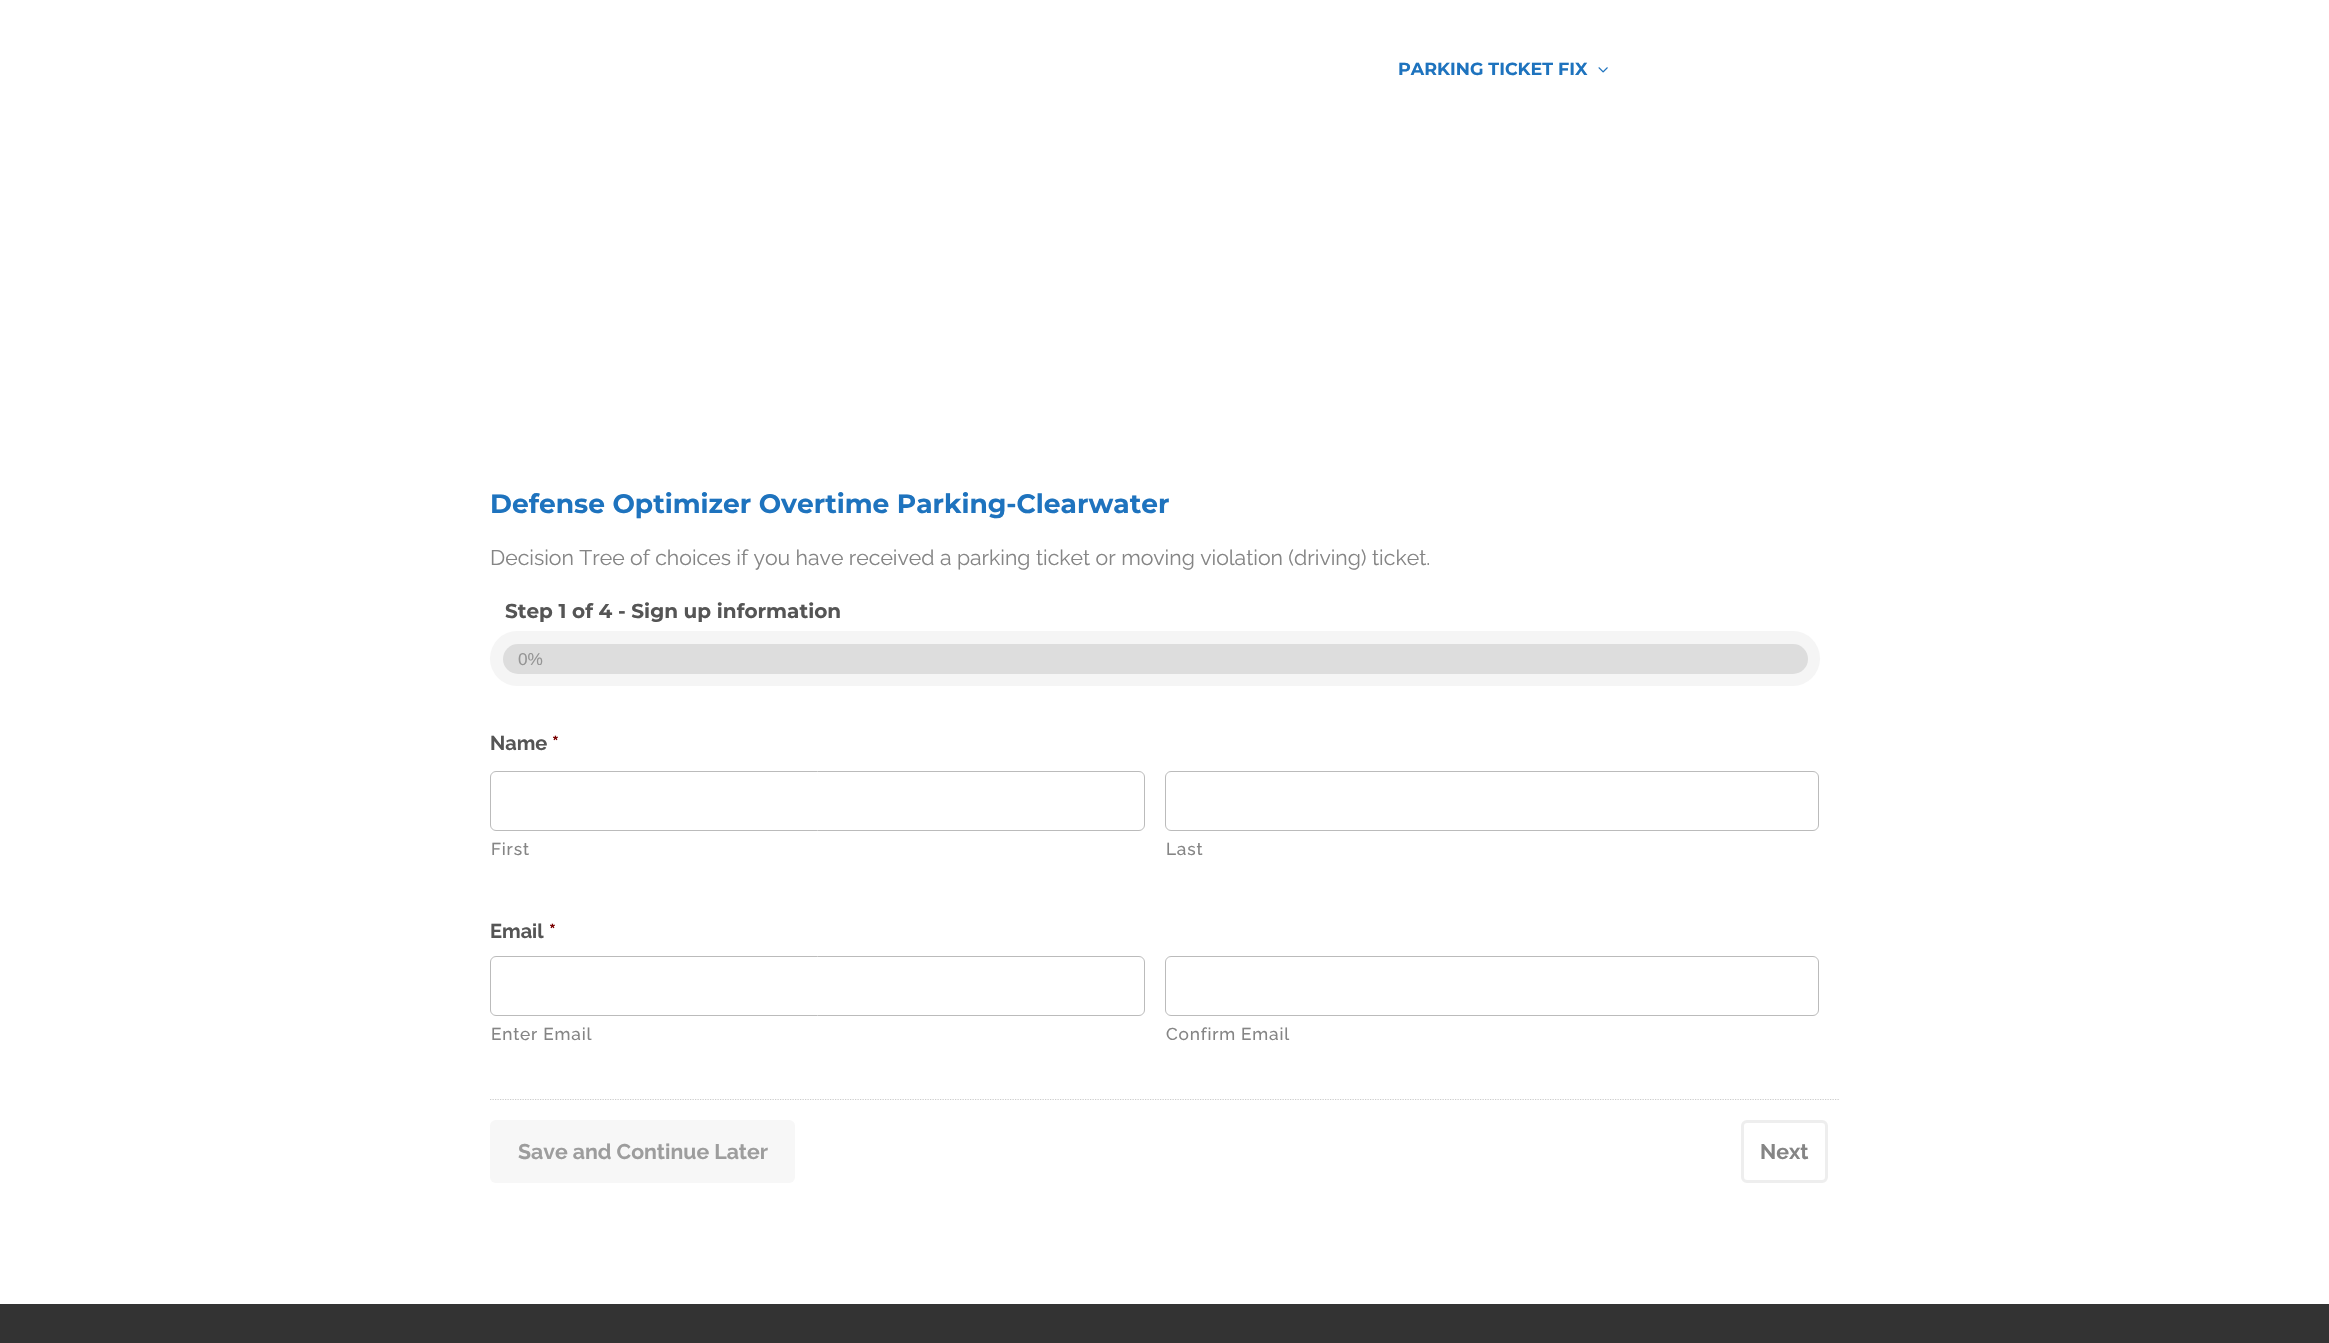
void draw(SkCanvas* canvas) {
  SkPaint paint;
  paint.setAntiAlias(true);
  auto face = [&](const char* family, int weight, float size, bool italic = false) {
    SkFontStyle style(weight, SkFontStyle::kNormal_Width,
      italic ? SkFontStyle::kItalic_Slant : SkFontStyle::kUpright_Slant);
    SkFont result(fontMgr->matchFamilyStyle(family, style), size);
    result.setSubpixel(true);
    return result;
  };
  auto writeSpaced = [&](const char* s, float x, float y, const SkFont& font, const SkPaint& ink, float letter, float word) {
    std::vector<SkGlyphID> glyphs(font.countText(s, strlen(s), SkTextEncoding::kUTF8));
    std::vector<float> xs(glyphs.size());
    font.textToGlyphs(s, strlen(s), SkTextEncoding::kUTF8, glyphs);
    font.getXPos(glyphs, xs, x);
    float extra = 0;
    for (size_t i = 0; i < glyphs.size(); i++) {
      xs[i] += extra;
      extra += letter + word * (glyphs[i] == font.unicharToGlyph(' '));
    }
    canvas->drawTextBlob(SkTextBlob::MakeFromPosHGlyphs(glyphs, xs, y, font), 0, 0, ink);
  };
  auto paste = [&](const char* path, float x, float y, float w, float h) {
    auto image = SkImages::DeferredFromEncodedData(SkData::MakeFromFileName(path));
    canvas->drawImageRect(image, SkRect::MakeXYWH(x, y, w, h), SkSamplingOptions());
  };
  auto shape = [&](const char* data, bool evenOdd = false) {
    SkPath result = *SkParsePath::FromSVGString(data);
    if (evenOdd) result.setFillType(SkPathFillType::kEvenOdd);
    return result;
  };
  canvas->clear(0xffffffff);
  paste("img/1.png", 1598, 67, 10, 6);
  paint.setColor(0xfff5f5f5);
  canvas->drawRoundRect(SkRect::MakeXYWH(490, 631, 1330, 55), 27.5f, 27.5f, paint);
  paint.setColor(0xffdddddd);
  canvas->drawRoundRect(SkRect::MakeXYWH(503, 644, 1305, 30), 15, 15, paint);
  paint.setStroke(true);
  paint.setStrokeWidth(1);
  paint.setColor(0xffbbbbbb);
  canvas->drawRoundRect(SkRect::MakeXYWH(490.5f, 771.5f, 654, 59), 5.5f, 5.5f, paint);
  canvas->drawRoundRect(SkRect::MakeXYWH(1165.5f, 771.5f, 653, 59), 5.5f, 5.5f, paint);
  canvas->drawRoundRect(SkRect::MakeXYWH(490.5f, 956.5f, 654, 59), 5.5f, 5.5f, paint);
  canvas->drawRoundRect(SkRect::MakeXYWH(1165.5f, 956.5f, 653, 59), 5.5f, 5.5f, paint);
  paint.setStrokeWidth(1.2f);
  paint.setColor(0xffcccccc);
  paint.setPathEffect(SkDashPathEffect::Make({{1.25f, 1.25f}}, 0));
  canvas->drawPath(shape("M490 1099.5H1840"), paint);
  paint.setPathEffect(nullptr);
  paint.setStroke(false);
  paint.setColor(0xfff7f7f7);
  canvas->drawRoundRect(SkRect::MakeXYWH(490, 1120, 305, 63), 6, 6, paint);
  paint.setStroke(true);
  paint.setStrokeWidth(3);
  paint.setColor(0xffeeeeee);
  canvas->drawRoundRect(SkRect::MakeXYWH(1742.5f, 1121.5f, 84, 60), 4.5f, 4.5f, paint);
  paint.setStroke(false);
  paint.setColor(0xff333333);
  canvas->drawRect(SkRect::MakeXYWH(0, 1304, 2329, 39), paint);
  auto f0 = face("Montserrat", 700, 17.5f);
  paint.setColor(0xff1e73be);
  canvas->drawString("PARKING TICKET FIX", 1398, 75, f0, paint);
  auto f1 = face("Montserrat", 700, 26.55f);
  canvas->drawString("Defense Optimizer Overtime Parking-Clearwater", 490, 513, f1, paint);
  auto f2 = face("Raleway", 400, 21.25f);
  paint.setColor(0xff858585);
  canvas->drawString("Decision Tree of choices if you have received a parking ticket or moving violation (driving) ticket.", 490, 565, f2, paint);
  auto f3 = face("Montserrat", 700, 20);
  paint.setColor(0xff555555);
  canvas->drawString("Step 1 of 4 - Sign up information", 505, 618, f3, paint);
  auto f4 = face("Liberation Sans", 400, 17.25f);
  paint.setColor(0xff959595);
  canvas->drawString("0%", 518, 665, f4, paint);
  auto f5 = face("Raleway", 700, 20);
  paint.setColor(0xff555555);
  canvas->drawString("Name", 490, 750, f5, paint);
  paint.setColor(0xff790000);
  canvas->drawString("*", 552, 750, f5, paint);
  auto f6 = face("Raleway", 500, 17.25f);
  paint.setColor(0xff858585);
  writeSpaced("First", 491, 855, f6, paint, 0.8f, 0);
  writeSpaced("Last", 1166, 855, f6, paint, 0.8f, 0);
  paint.setColor(0xff555555);
  canvas->drawString("Email", 490, 938, f5, paint);
  paint.setColor(0xff790000);
  canvas->drawString("*", 549, 938, f5, paint);
  paint.setColor(0xff858585);
  writeSpaced("Enter Email", 491, 1040, f6, paint, 0.8f, 0);
  writeSpaced("Confirm Email", 1166, 1040, f6, paint, 0.8f, 0);
  auto f7 = face("Raleway", 700, 21.25f);
  paint.setColor(0xff9d9d9d);
  canvas->drawString("Save and Continue Later", 518, 1159, f7, paint);
  paint.setColor(0xff858585);
  canvas->drawString("Next", 1760, 1159, f7, paint);
}
